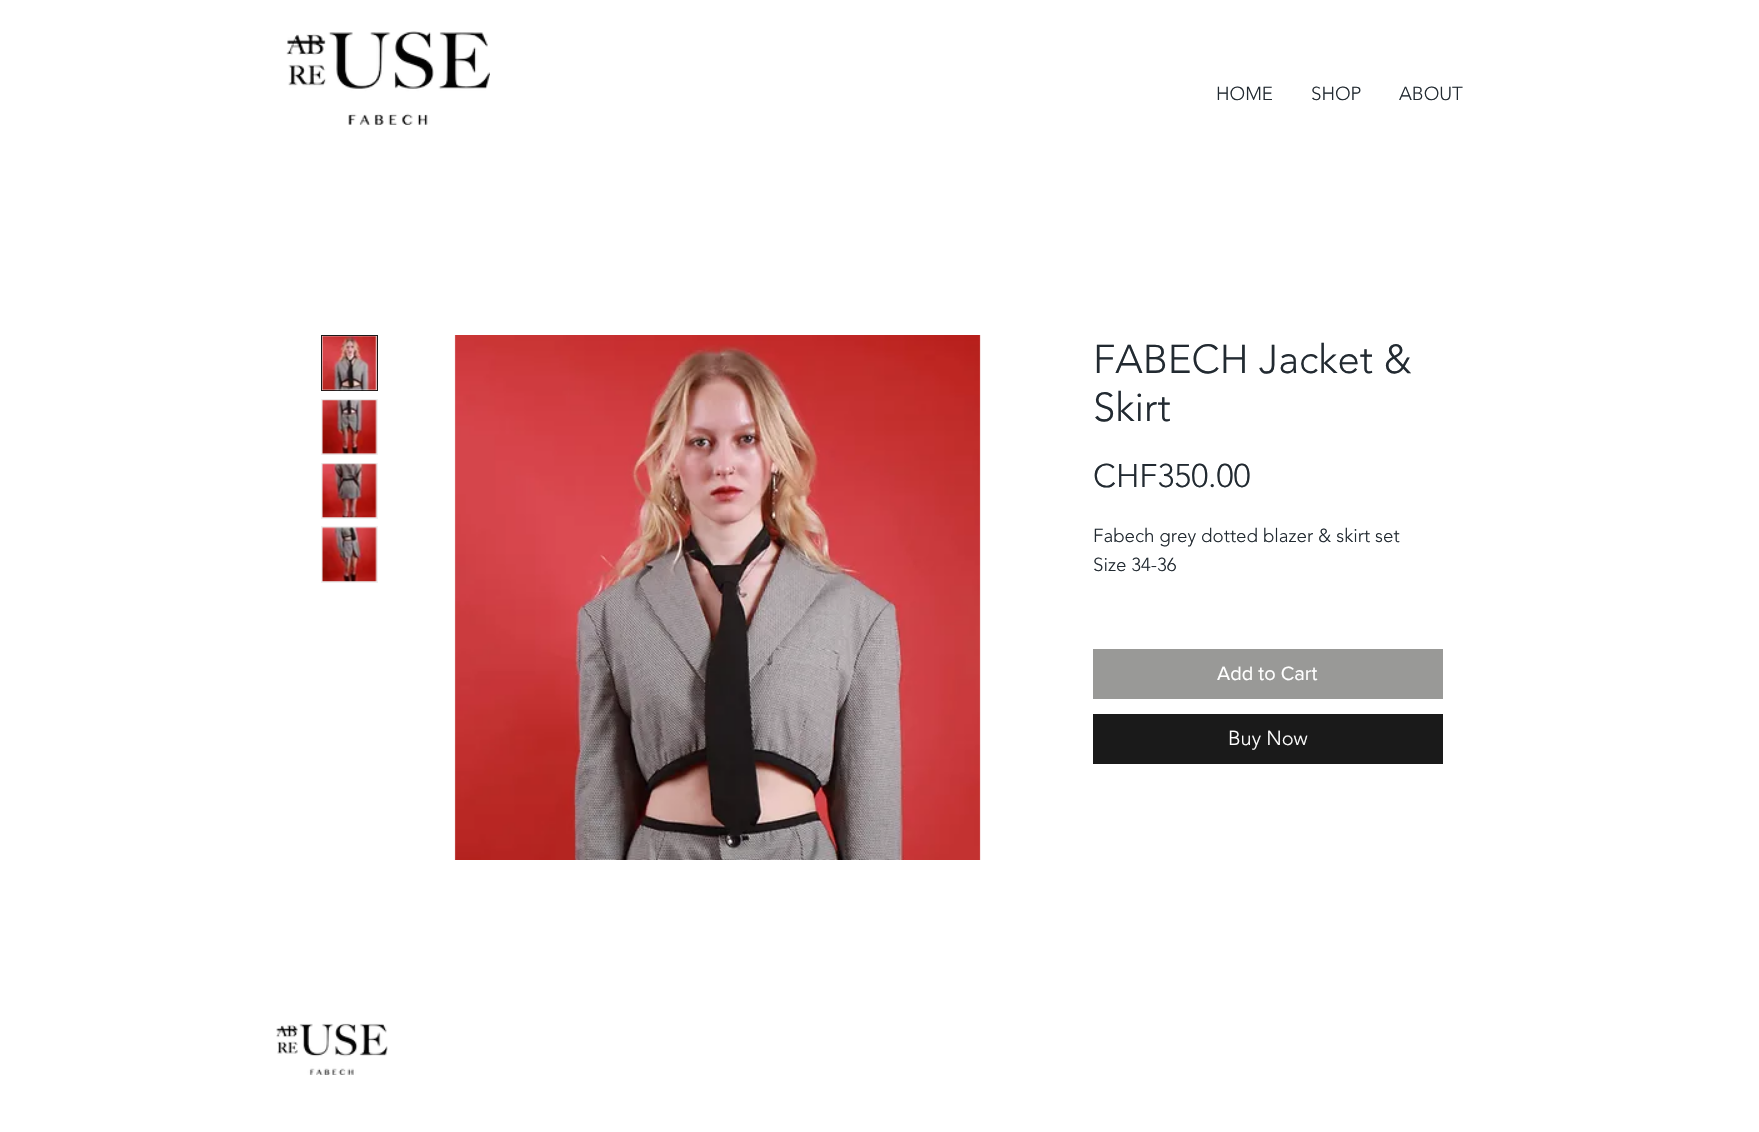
void draw(SkCanvas* canvas) {
  SkPaint paint;
  paint.setAntiAlias(true);
  auto face = [&](const char* family, int weight, float size, bool italic = false) {
    SkFontStyle style(weight, SkFontStyle::kNormal_Width,
      italic ? SkFontStyle::kItalic_Slant : SkFontStyle::kUpright_Slant);
    SkFont result(fontMgr->matchFamilyStyle(family, style), size);
    result.setSubpixel(true);
    return result;
  };
  auto paste = [&](const char* path, float x, float y, float w, float h) {
    auto image = SkImages::DeferredFromEncodedData(SkData::MakeFromFileName(path));
    canvas->drawImageRect(image, SkRect::MakeXYWH(x, y, w, h), SkSamplingOptions());
  };
  canvas->clear(0xffffffff);
  paste("img/1.png", 286, 31, 204, 94);
  paint.setColor(0xfff0f0f0);
  canvas->drawRect(SkRect::MakeXYWH(321.5f, 335.5f, 56, 55), paint);
  paint.setStroke(true);
  paint.setStrokeWidth(1);
  paint.setColor(0xff1a1a1a);
  canvas->drawRect(SkRect::MakeXYWH(321.5f, 335.5f, 56, 55), paint);
  paste("img/2.png", 322, 336, 55, 55);
  paint.setStroke(false);
  paint.setColor(0xfff0f0f0);
  canvas->drawRect(SkRect::MakeXYWH(321, 399, 57, 56), paint);
  paste("img/3.png", 322, 399, 55, 56);
  canvas->drawRect(SkRect::MakeXYWH(321, 463, 57, 56), paint);
  paste("img/4.png", 322, 463, 55, 55);
  canvas->drawRect(SkRect::MakeXYWH(321, 526, 57, 57), paint);
  paste("img/5.png", 322, 527, 55, 55);
  paste("img/6.png", 454, 335, 527, 525);
  paint.setColor(0xff999997);
  canvas->drawRect(SkRect::MakeXYWH(1093, 649, 350, 50), paint);
  paint.setColor(0xff1a1a1a);
  canvas->drawRect(SkRect::MakeXYWH(1093, 714, 350, 50), paint);
  paste("img/7.png", 276, 1023, 112, 52);
  auto f0 = face("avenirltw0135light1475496", 300, 18.75f);
  paint.setColor(0xff222a31);
  {
    const struct { const char* s; float x, y; } items[] = {
      {"HOME", 1216, 100},
      {"SHOP", 1311, 100},
      {"ABOUT", 1399, 100},
    };
    for (auto [s, x, y] : items) {
      canvas->drawString(s, x, y, f0, paint);
    }
  }
  auto f1 = face("avenirltw0135light1475496", 300, 40);
  canvas->drawString("FABECH Jacket &", 1093, 373, f1, paint);
  canvas->drawString("Skirt", 1093, 421, f1, paint);
  auto f2 = face("avenirltw0135light1475496", 300, 32.5f);
  canvas->drawString("CHF350.00", 1093, 487, f2, paint);
  canvas->drawString("Fabech grey dotted blazer & skirt set", 1093, 542, f0, paint);
  canvas->drawString("Size 34-36", 1093, 571, f0, paint);
  auto f3 = face("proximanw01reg", 400, 20);
  paint.setColor(0xffffffff);
  canvas->drawString("Add to Cart", 1217, 680, f3, paint);
  auto f4 = face("avenirltw0135light1475496", 300, 20);
  canvas->drawString("Buy Now", 1228, 745, f4, paint);
}
